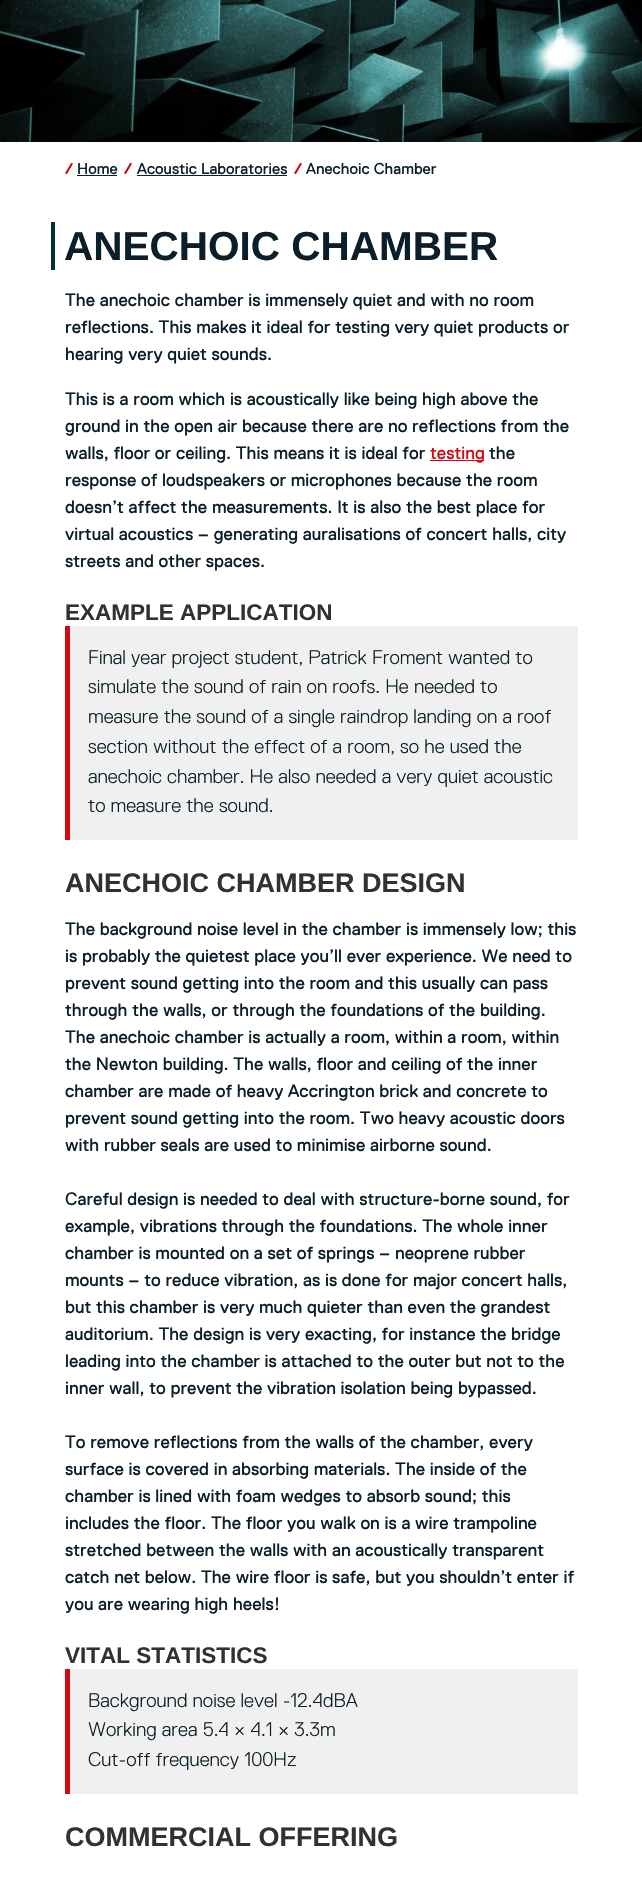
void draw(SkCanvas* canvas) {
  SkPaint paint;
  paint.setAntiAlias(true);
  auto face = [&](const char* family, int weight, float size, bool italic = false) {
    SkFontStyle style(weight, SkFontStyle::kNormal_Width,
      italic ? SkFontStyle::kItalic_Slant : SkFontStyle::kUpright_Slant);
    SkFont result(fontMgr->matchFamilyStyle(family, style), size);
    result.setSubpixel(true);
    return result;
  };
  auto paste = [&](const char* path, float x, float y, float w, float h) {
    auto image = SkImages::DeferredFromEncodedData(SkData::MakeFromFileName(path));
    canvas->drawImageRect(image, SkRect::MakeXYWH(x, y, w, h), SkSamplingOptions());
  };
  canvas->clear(0xffffffff);
  paste("img/1.png", 0, 0, 642, 142);
  {
    const struct { float x, y, w, h; SkColor color; } items[] = {
      {77, 175, 40, 1, 0xff0a1f29},
      {137, 175, 150, 1, 0xff0a1f29},
      {51, 222, 4, 48, 0xff00313d},
      {430, 460, 54, 1, 0xffd20a11},
      {70, 626, 508, 214, 0xfff0f0f0},
      {65, 626, 5, 214, 0xffd20a11},
      {70, 1669, 508, 125, 0xfff0f0f0},
      {65, 1669, 5, 125, 0xffd20a11},
    };
    for (auto [x, y, w, h, color] : items) {
      paint.setColor(color);
      canvas->drawRect(SkRect::MakeXYWH(x, y, w, h), paint);
    }
  }
  auto f0 = face("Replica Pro", 700, 15.75f);
  canvas->drawString("/", 65, 174, f0, paint);
  auto f1 = face("Replica Pro", 400, 15.75f);
  paint.setColor(0xff0a1f29);
  canvas->drawString("Home", 77, 174, f1, paint);
  paint.setColor(0xffd20a11);
  canvas->drawString("/", 124, 174, f0, paint);
  paint.setColor(0xff0a1f29);
  canvas->drawString("Acoustic Laboratories", 137, 174, f1, paint);
  paint.setColor(0xffd20a11);
  canvas->drawString("/", 294, 174, f0, paint);
  paint.setColor(0xff0a1f29);
  canvas->drawString("Anechoic Chamber", 306, 174, f1, paint);
  auto f2 = face("Liberation Sans", 700, 40.5f);
  canvas->drawString("ANECHOIC CHAMBER", 64, 260, f2, paint);
  auto f3 = face("Replica Pro", 400, 18);
  {
    const struct { const char* s; float x, y; } items[] = {
      {"The anechoic chamber is immensely quiet and with no room", 65, 306},
      {"reflections. This makes it ideal for testing very quiet products or", 65, 333},
      {"hearing very quiet sounds.", 65, 360},
      {"This is a room which is acoustically like being high above the", 65, 405},
      {"ground in the open air because there are no reflections from the", 65, 432},
      {"walls, floor or ceiling. This means it is ideal for", 65, 459},
    };
    for (auto [s, x, y] : items) {
      canvas->drawString(s, x, y, f3, paint);
    }
  }
  paint.setColor(0xffd20a11);
  canvas->drawString("testing", 430, 459, f3, paint);
  paint.setColor(0xff0a1f29);
  {
    const struct { const char* s; float x, y; } items[] = {
      {"the", 489, 459},
      {"response of loudspeakers or microphones because the room", 65, 486},
      {"doesn’t affect the measurements. It is also the best place for", 65, 513},
      {"virtual acoustics – generating auralisations of concert halls, city", 65, 540},
      {"streets and other spaces.", 65, 567},
    };
    for (auto [s, x, y] : items) {
      canvas->drawString(s, x, y, f3, paint);
    }
  }
  auto f4 = face("Liberation Sans", 700, 22.5f);
  paint.setColor(0xff313131);
  canvas->drawString("EXAMPLE APPLICATION", 65, 620, f4, paint);
  auto f5 = face("Replica Pro", 300, 19.8f);
  paint.setColor(0xff0a1f29);
  {
    const struct { const char* s; float x, y; } items[] = {
      {"Final year project student, Patrick Froment wanted to", 88, 664},
      {"simulate the sound of rain on roofs. He needed to", 88, 693},
      {"measure the sound of a single raindrop landing on a roof", 88, 723},
      {"section without the effect of a room, so he used the", 88, 753},
      {"anechoic chamber. He also needed a very quiet acoustic", 88, 783},
      {"to measure the sound.", 88, 812},
    };
    for (auto [s, x, y] : items) {
      canvas->drawString(s, x, y, f5, paint);
    }
  }
  auto f6 = face("Liberation Sans", 700, 27);
  paint.setColor(0xff313131);
  canvas->drawString("ANECHOIC CHAMBER DESIGN", 65, 892, f6, paint);
  paint.setColor(0xff0a1f29);
  {
    const struct { const char* s; float x, y; } items[] = {
      {"The background noise level in the chamber is immensely low; this", 65, 935},
      {"is probably the quietest place you’ll ever experience. We need to", 65, 962},
      {"prevent sound getting into the room and this usually can pass", 65, 989},
      {"through the walls, or through the foundations of the building.", 65, 1016},
      {"The anechoic chamber is actually a room, within a room, within", 65, 1043},
      {"the Newton building. The walls, floor and ceiling of the inner", 65, 1070},
      {"chamber are made of heavy Accrington brick and concrete to", 65, 1097},
      {"prevent sound getting into the room. Two heavy acoustic doors", 65, 1124},
      {"with rubber seals are used to minimise airborne sound.", 65, 1151},
      {"Careful design is needed to deal with structure-borne sound, for", 65, 1205},
      {"example, vibrations through the foundations. The whole inner", 65, 1232},
      {"chamber is mounted on a set of springs – neoprene rubber", 65, 1259},
      {"mounts – to reduce vibration, as is done for major concert halls,", 65, 1286},
      {"but this chamber is very much quieter than even the grandest", 65, 1313},
      {"auditorium. The design is very exacting, for instance the bridge", 65, 1340},
      {"leading into the chamber is attached to the outer but not to the", 65, 1367},
      {"inner wall, to prevent the vibration isolation being bypassed.", 65, 1394},
      {"To remove reflections from the walls of the chamber, every", 65, 1448},
      {"surface is covered in absorbing materials. The inside of the", 65, 1475},
      {"chamber is lined with foam wedges to absorb sound; this", 65, 1502},
      {"includes the floor. The floor you walk on is a wire trampoline", 65, 1529},
      {"stretched between the walls with an acoustically transparent", 65, 1556},
      {"catch net below. The wire floor is safe, but you shouldn’t enter if", 65, 1583},
      {"you are wearing high heels!", 65, 1610},
    };
    for (auto [s, x, y] : items) {
      canvas->drawString(s, x, y, f3, paint);
    }
  }
  paint.setColor(0xff313131);
  canvas->drawString("VITAL STATISTICS", 65, 1663, f4, paint);
  paint.setColor(0xff0a1f29);
  {
    const struct { const char* s; float x, y; } items[] = {
      {"Background noise level -12.4dBA", 88, 1707},
      {"Working area 5.4 × 4.1 × 3.3m", 88, 1736},
      {"Cut-off frequency 100Hz", 88, 1766},
    };
    for (auto [s, x, y] : items) {
      canvas->drawString(s, x, y, f5, paint);
    }
  }
  paint.setColor(0xff313131);
  canvas->drawString("COMMERCIAL OFFERING", 65, 1846, f6, paint);
}
